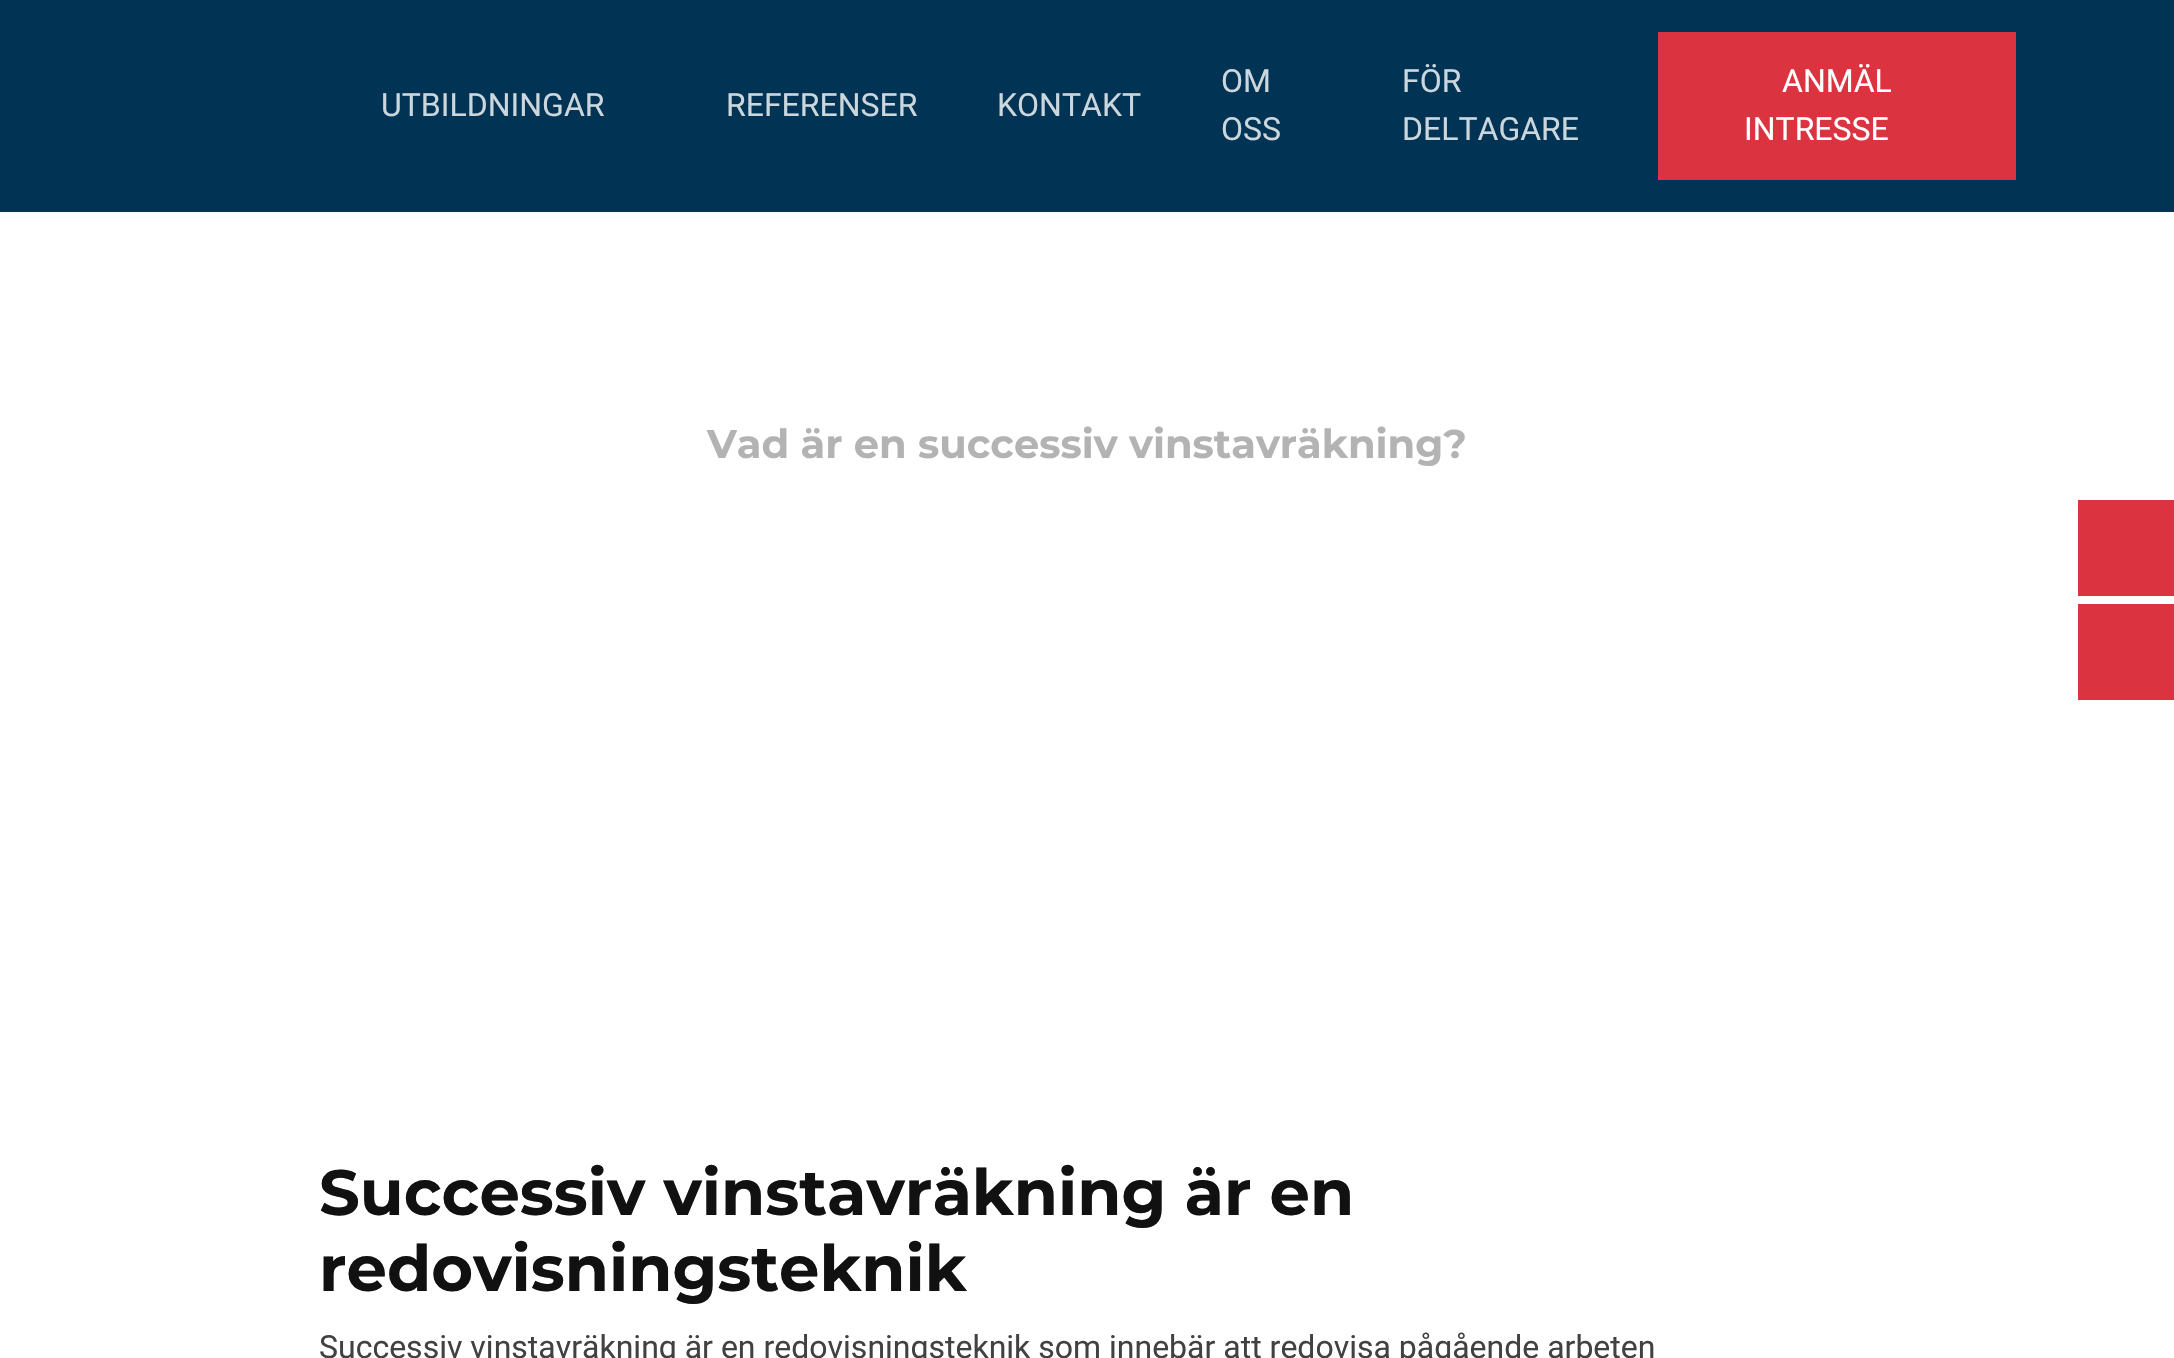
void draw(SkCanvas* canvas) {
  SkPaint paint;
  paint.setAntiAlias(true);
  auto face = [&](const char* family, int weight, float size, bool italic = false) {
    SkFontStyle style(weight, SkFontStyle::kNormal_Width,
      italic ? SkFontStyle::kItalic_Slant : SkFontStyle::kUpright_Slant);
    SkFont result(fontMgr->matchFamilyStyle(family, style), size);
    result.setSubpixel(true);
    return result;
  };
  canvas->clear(0xffffffff);
  {
    const struct { float x, y, w, h; SkColor color; } items[] = {
      {0, 0, 2174, 212, 0xff003354},
      {1658, 32, 358, 148, 0xffdc3340},
      {2078, 500, 96, 96, 0xffdc3340},
      {2078, 604, 96, 96, 0xffdc3340},
    };
    for (auto [x, y, w, h, color] : items) {
      paint.setColor(color);
      canvas->drawRect(SkRect::MakeXYWH(x, y, w, h), paint);
    }
  }
  auto f0 = face("Roboto", 400, 32);
  paint.setColor(0xffccd6dd);
  {
    const struct { const char* s; float x, y; } items[] = {
      {"UTBILDNINGAR", 381, 116},
      {"REFERENSER", 726, 116},
      {"KONTAKT", 997, 116},
      {"OM", 1221, 92},
      {"OSS", 1221, 140},
      {"FÖR", 1402, 92},
      {"DELTAGARE", 1402, 140},
    };
    for (auto [s, x, y] : items) {
      canvas->drawString(s, x, y, f0, paint);
    }
  }
  paint.setColor(0xffffffff);
  canvas->drawString("ANMÄL", 1782, 92, f0, paint);
  canvas->drawString("INTRESSE", 1744, 140, f0, paint);
  auto f1 = face("Montserrat", 700, 40);
  paint.setColor(0xffb3b3b3);
  canvas->drawString("Vad är en successiv vinstavräkning?", 707, 458, f1, paint);
  auto f2 = face("Montserrat", 700, 64);
  paint.setColor(0xff111111);
  canvas->drawString("Successiv vinstavräkning är en", 319, 1215, f2, paint);
  canvas->drawString("redovisningsteknik", 319, 1291, f2, paint);
  paint.setColor(0xff414141);
  canvas->drawString("Successiv vinstavräkning är en redovisningsteknik som innebär att redovisa pågående arbeten", 319, 1358, f0, paint);
}
